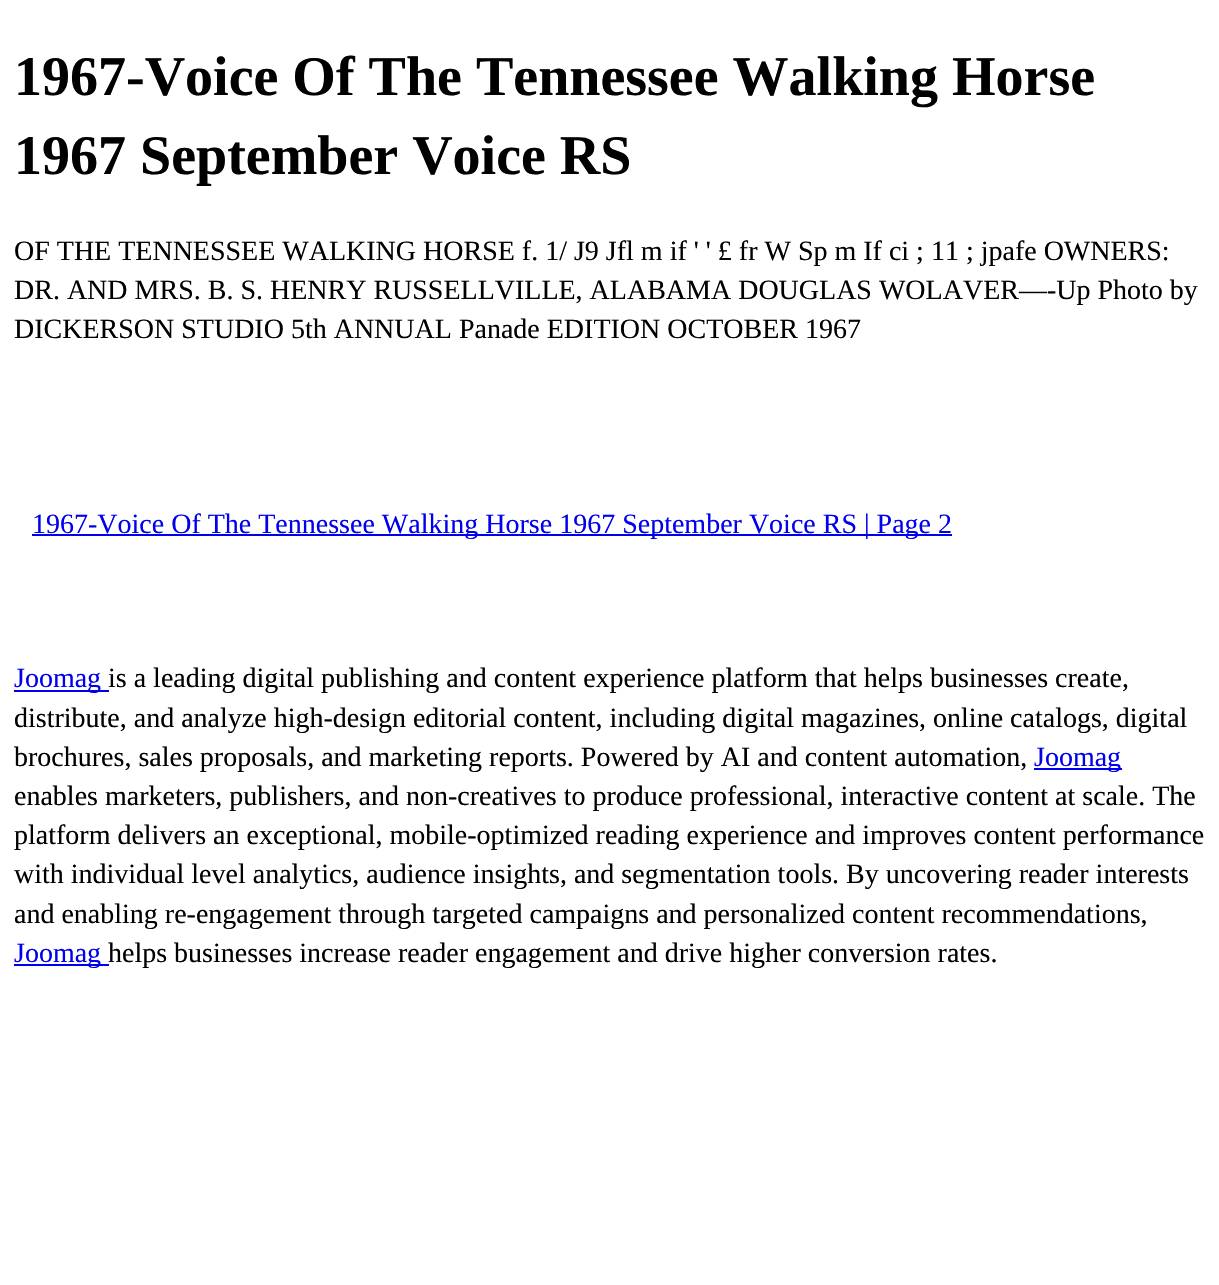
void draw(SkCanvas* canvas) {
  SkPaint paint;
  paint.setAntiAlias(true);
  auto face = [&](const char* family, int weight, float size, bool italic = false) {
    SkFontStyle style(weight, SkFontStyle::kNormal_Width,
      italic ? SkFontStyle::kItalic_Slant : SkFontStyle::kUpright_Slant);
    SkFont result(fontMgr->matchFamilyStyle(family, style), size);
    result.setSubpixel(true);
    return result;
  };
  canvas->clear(0xffffffff);
  {
    const struct { float x, y, w, h; SkColor color; } items[] = {
      {32, 534, 920, 2, 0xff0000ee},
      {14, 690, 95, 2, 0xff0000ee},
      {1034, 768, 88, 2, 0xff0000ee},
      {14, 964, 95, 2, 0xff0000ee},
    };
    for (auto [x, y, w, h, color] : items) {
      paint.setColor(color);
      canvas->drawRect(SkRect::MakeXYWH(x, y, w, h), paint);
    }
  }
  auto f0 = face("Liberation Serif", 700, 56);
  paint.setColor(0xff000000);
  canvas->drawString("1967-Voice Of The Tennessee Walking Horse", 14, 95, f0, paint);
  canvas->drawString("1967 September Voice RS", 14, 174, f0, paint);
  auto f1 = face("Liberation Serif", 400, 28);
  {
    const struct { const char* s; float x, y; } items[] = {
      {"OF THE TENNESSEE WALKING HORSE f. 1/ J9 Jfl m if ' ' £ fr W Sp m If ci ; 11 ; jpafe OWNERS:", 14, 260},
      {"DR. AND MRS. B. S. HENRY RUSSELLVILLE, ALABAMA DOUGLAS WOLAVER—-Up Photo by", 14, 299},
      {"DICKERSON STUDIO 5th ANNUAL Panade EDITION OCTOBER 1967", 14, 338},
    };
    for (auto [s, x, y] : items) {
      canvas->drawString(s, x, y, f1, paint);
    }
  }
  paint.setColor(0xff0000ee);
  canvas->drawString("1967-Voice Of The Tennessee Walking Horse 1967 September Voice RS | Page 2", 32, 533, f1, paint);
  canvas->drawString("Joomag", 14, 687, f1, paint);
  paint.setColor(0xff000000);
  {
    const struct { const char* s; float x, y; } items[] = {
      {"is a leading digital publishing and content experience platform that helps businesses create,", 108, 687},
      {"distribute, and analyze high-design editorial content, including digital magazines, online catalogs, digital", 14, 727},
      {"brochures, sales proposals, and marketing reports. Powered by AI and content automation,", 14, 766},
    };
    for (auto [s, x, y] : items) {
      canvas->drawString(s, x, y, f1, paint);
    }
  }
  paint.setColor(0xff0000ee);
  canvas->drawString("Joomag", 1034, 766, f1, paint);
  paint.setColor(0xff000000);
  {
    const struct { const char* s; float x, y; } items[] = {
      {"enables marketers, publishers, and non-creatives to produce professional, interactive content at scale. The", 14, 805},
      {"platform delivers an exceptional, mobile-optimized reading experience and improves content performance", 14, 844},
      {"with individual level analytics, audience insights, and segmentation tools. By uncovering reader interests", 14, 883},
      {"and enabling re-engagement through targeted campaigns and personalized content recommendations,", 14, 923},
    };
    for (auto [s, x, y] : items) {
      canvas->drawString(s, x, y, f1, paint);
    }
  }
  paint.setColor(0xff0000ee);
  canvas->drawString("Joomag", 14, 962, f1, paint);
  paint.setColor(0xff000000);
  canvas->drawString("helps businesses increase reader engagement and drive higher conversion rates.", 108, 962, f1, paint);
}
